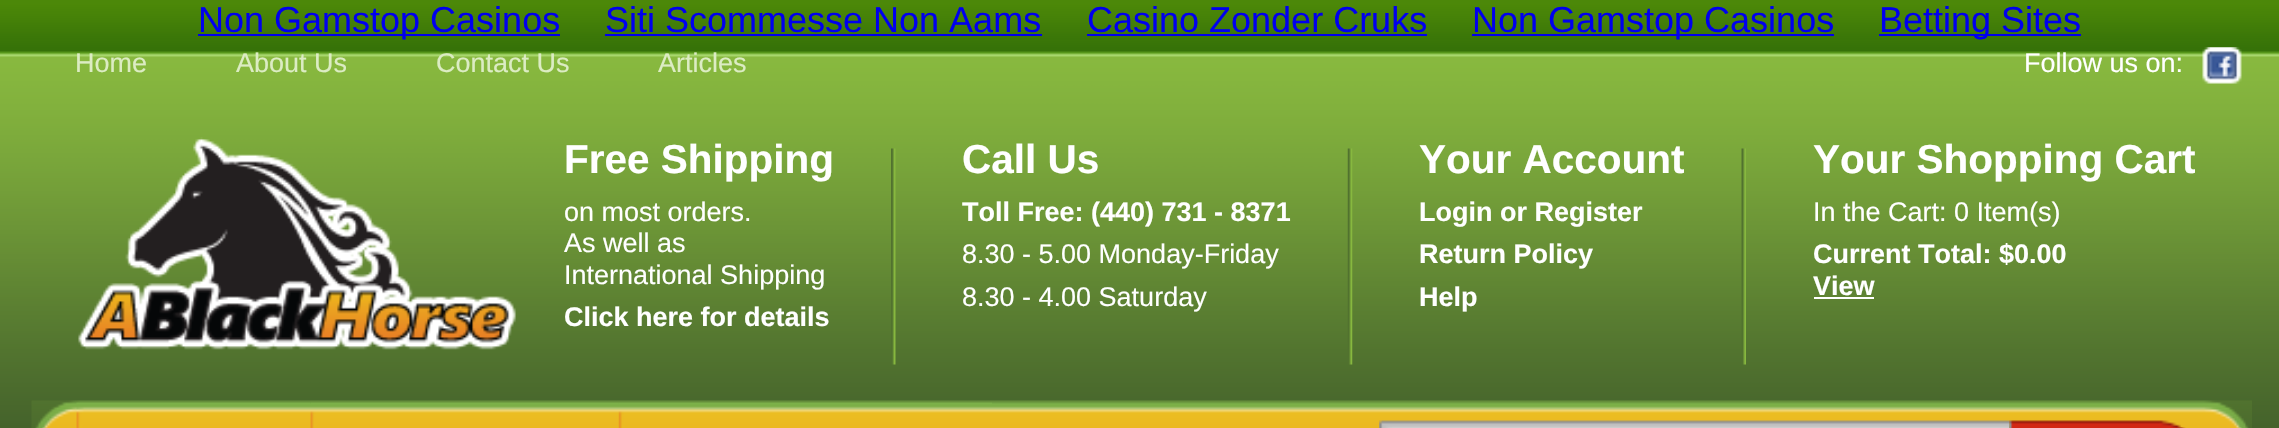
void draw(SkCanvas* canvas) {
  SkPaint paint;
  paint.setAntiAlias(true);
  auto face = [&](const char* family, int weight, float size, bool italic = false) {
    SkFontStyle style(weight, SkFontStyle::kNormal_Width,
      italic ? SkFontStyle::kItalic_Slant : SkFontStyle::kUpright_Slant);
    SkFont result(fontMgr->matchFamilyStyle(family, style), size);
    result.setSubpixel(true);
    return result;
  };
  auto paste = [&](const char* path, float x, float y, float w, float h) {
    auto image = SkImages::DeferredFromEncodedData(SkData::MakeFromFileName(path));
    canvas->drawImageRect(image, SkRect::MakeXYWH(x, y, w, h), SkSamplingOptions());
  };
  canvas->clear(0xffffffff);
  paste("img/1.png", 0, 0, 2279, 428);
  {
    const struct { float x, y, w, h; SkColor color; } items[] = {
      {198, 34, 362, 2, 0xff0000ee},
      {605, 34, 437, 2, 0xff0000ee},
      {1087, 34, 340, 2, 0xff0000ee},
      {1472, 34, 362, 2, 0xff0000ee},
      {1879, 34, 202, 2, 0xff0000ee},
    };
    for (auto [x, y, w, h, color] : items) {
      paint.setColor(color);
      canvas->drawRect(SkRect::MakeXYWH(x, y, w, h), paint);
    }
  }
  paste("img/2.png", 2202, 47, 40, 37);
  paste("img/3.png", 78, 137, 438, 213);
  paste("img/4.png", 891, 148, 5, 217);
  paste("img/5.png", 1347, 148, 6, 217);
  paste("img/6.png", 1741, 148, 5, 217);
  paint.setColor(0xffffffff);
  canvas->drawRect(SkRect::MakeXYWH(1814, 297, 60, 2), paint);
  paste("img/7.png", 31, 400, 2221, 28);
  paste("img/8.png", 76, 402, 234, 26);
  paste("img/9.png", 310, 402, 309, 26);
  paste("img/10.png", 618, 402, 374, 26);
  paste("img/11.png", 1379, 420, 631, 8);
  paste("img/12.png", 2009, 420, 177, 8);
  auto f0 = face("Liberation Sans", 400, 36);
  paint.setColor(0xff0000ee);
  {
    const struct { const char* s; float x, y; } items[] = {
      {"Non Gamstop Casinos", 198, 32},
      {"Siti Scommesse Non Aams", 605, 32},
      {"Casino Zonder Cruks", 1087, 32},
      {"Non Gamstop Casinos", 1472, 32},
      {"Betting Sites", 1879, 32},
    };
    for (auto [s, x, y] : items) {
      canvas->drawString(s, x, y, f0, paint);
    }
  }
  auto f1 = face("Liberation Sans", 400, 27);
  paint.setColor(0xffdcecc3);
  {
    const struct { const char* s; float x, y; } items[] = {
      {"Home", 75, 72},
      {"About Us", 236, 72},
      {"Contact Us", 436, 72},
      {"Articles", 658, 72},
    };
    for (auto [s, x, y] : items) {
      canvas->drawString(s, x, y, f1, paint);
    }
  }
  paint.setColor(0xffffffff);
  canvas->drawString("Follow us on:", 2024, 72, f1, paint);
  auto f2 = face("Liberation Sans", 700, 40.5f);
  canvas->drawString("Free Shipping", 564, 173, f2, paint);
  {
    const struct { const char* s; float x, y; } items[] = {
      {"on most orders.", 564, 221},
      {"As well as", 564, 252},
      {"International Shipping", 564, 284},
    };
    for (auto [s, x, y] : items) {
      canvas->drawString(s, x, y, f1, paint);
    }
  }
  auto f3 = face("Liberation Sans", 700, 27);
  canvas->drawString("Click here for details", 564, 326, f3, paint);
  canvas->drawString("Call Us", 962, 173, f2, paint);
  canvas->drawString("Toll Free: (440) 731 - 8371", 962, 221, f3, paint);
  canvas->drawString("8.30 - 5.00 Monday-Friday", 962, 263, f1, paint);
  canvas->drawString("8.30 - 4.00 Saturday", 962, 306, f1, paint);
  canvas->drawString("Your Account", 1419, 173, f2, paint);
  {
    const struct { const char* s; float x, y; } items[] = {
      {"Login or Register", 1419, 221},
      {"Return Policy", 1419, 263},
      {"Help", 1419, 306},
    };
    for (auto [s, x, y] : items) {
      canvas->drawString(s, x, y, f3, paint);
    }
  }
  canvas->drawString("Your Shopping Cart", 1813, 173, f2, paint);
  canvas->drawString("In the Cart: 0 Item(s)", 1813, 221, f1, paint);
  canvas->drawString("Current Total: $0.00", 1813, 263, f3, paint);
  canvas->drawString("View", 1813, 295, f3, paint);
}
